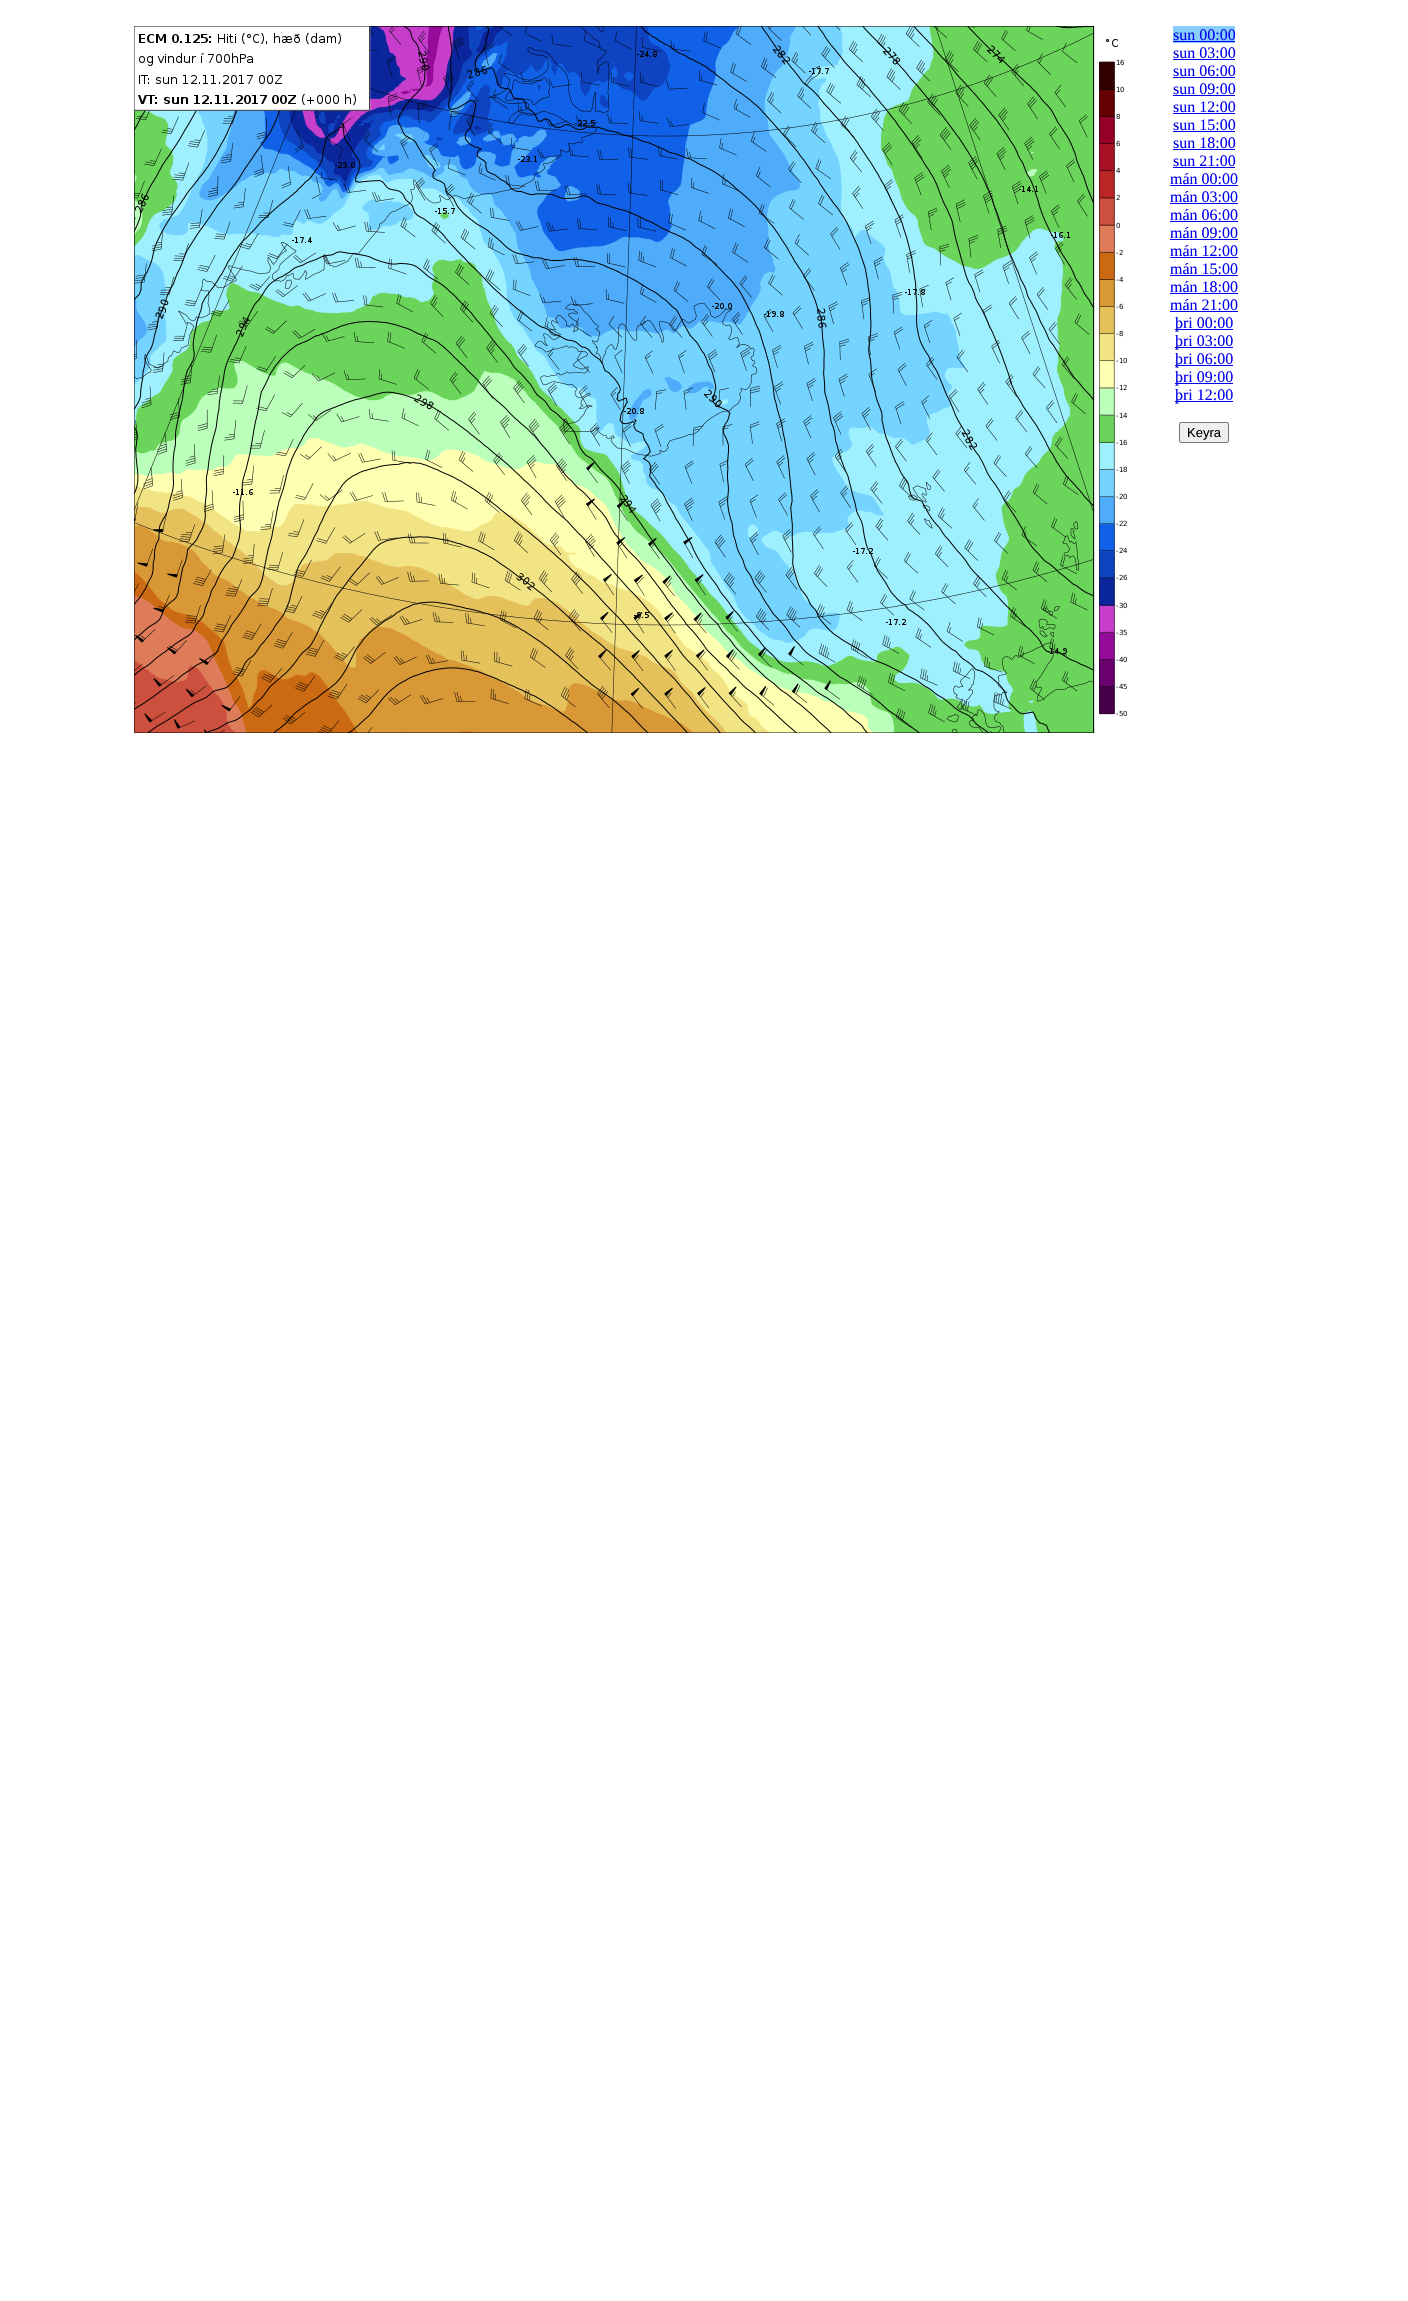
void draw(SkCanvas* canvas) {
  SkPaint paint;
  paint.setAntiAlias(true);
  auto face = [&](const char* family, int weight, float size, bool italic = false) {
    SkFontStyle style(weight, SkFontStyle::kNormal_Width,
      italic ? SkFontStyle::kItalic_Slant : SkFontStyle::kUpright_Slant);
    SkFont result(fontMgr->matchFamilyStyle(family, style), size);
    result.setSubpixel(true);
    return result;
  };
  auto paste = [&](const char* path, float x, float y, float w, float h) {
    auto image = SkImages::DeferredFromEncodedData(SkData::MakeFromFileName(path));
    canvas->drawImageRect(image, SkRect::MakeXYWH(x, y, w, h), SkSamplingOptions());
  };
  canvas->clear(0xffffffff);
  paste("img/1.png", 134, 26, 994, 707);
  {
    const struct { float x, y, w, h; SkColor color; } items[] = {
      {1173, 26, 62, 17, 0xff87cefa},
      {1173, 41, 62, 1, 0xff0000ee},
      {1173, 59, 62, 1, 0xff0000ee},
      {1173, 77, 62, 1, 0xff0000ee},
      {1173, 95, 62, 1, 0xff0000ee},
      {1173, 113, 62, 1, 0xff0000ee},
      {1173, 131, 62, 1, 0xff0000ee},
      {1173, 149, 62, 1, 0xff0000ee},
      {1173, 167, 62, 1, 0xff0000ee},
      {1170, 185, 68, 1, 0xff0000ee},
      {1170, 203, 68, 1, 0xff0000ee},
      {1170, 221, 68, 1, 0xff0000ee},
      {1170, 239, 68, 1, 0xff0000ee},
      {1170, 257, 68, 1, 0xff0000ee},
      {1170, 275, 68, 1, 0xff0000ee},
      {1170, 293, 68, 1, 0xff0000ee},
      {1170, 311, 68, 1, 0xff0000ee},
      {1175, 329, 58, 1, 0xff0000ee},
      {1175, 347, 58, 1, 0xff0000ee},
      {1175, 365, 58, 1, 0xff0000ee},
      {1175, 383, 58, 1, 0xff0000ee},
      {1175, 401, 58, 1, 0xff0000ee},
    };
    for (auto [x, y, w, h, color] : items) {
      paint.setColor(color);
      canvas->drawRect(SkRect::MakeXYWH(x, y, w, h), paint);
    }
  }
  paint.setColor(0xffefefef);
  canvas->drawRoundRect(SkRect::MakeXYWH(1179.5f, 422.5f, 49, 20), 1.5f, 1.5f, paint);
  paint.setStroke(true);
  paint.setStrokeWidth(1);
  paint.setColor(0xff767676);
  canvas->drawRoundRect(SkRect::MakeXYWH(1179.5f, 422.5f, 49, 20), 1.5f, 1.5f, paint);
  auto f0 = face("Liberation Serif", 400, 16);
  paint.setStroke(false);
  paint.setColor(0xff0000ee);
  {
    const struct { const char* s; float x, y; } items[] = {
      {"sun 00:00", 1173, 40},
      {"sun 03:00", 1173, 58},
      {"sun 06:00", 1173, 76},
      {"sun 09:00", 1173, 94},
      {"sun 12:00", 1173, 112},
      {"sun 15:00", 1173, 130},
      {"sun 18:00", 1173, 148},
      {"sun 21:00", 1173, 166},
      {"mán 00:00", 1170, 184},
      {"mán 03:00", 1170, 202},
      {"mán 06:00", 1170, 220},
      {"mán 09:00", 1170, 238},
      {"mán 12:00", 1170, 256},
      {"mán 15:00", 1170, 274},
      {"mán 18:00", 1170, 292},
      {"mán 21:00", 1170, 310},
      {"þri 00:00", 1175, 328},
      {"þri 03:00", 1175, 346},
      {"þri 06:00", 1175, 364},
      {"þri 09:00", 1175, 382},
      {"þri 12:00", 1175, 400},
    };
    for (auto [s, x, y] : items) {
      canvas->drawString(s, x, y, f0, paint);
    }
  }
  auto f1 = face("Liberation Sans", 400, 13);
  paint.setColor(0xff000000);
  canvas->drawString("Keyra", 1187, 437, f1, paint);
}
